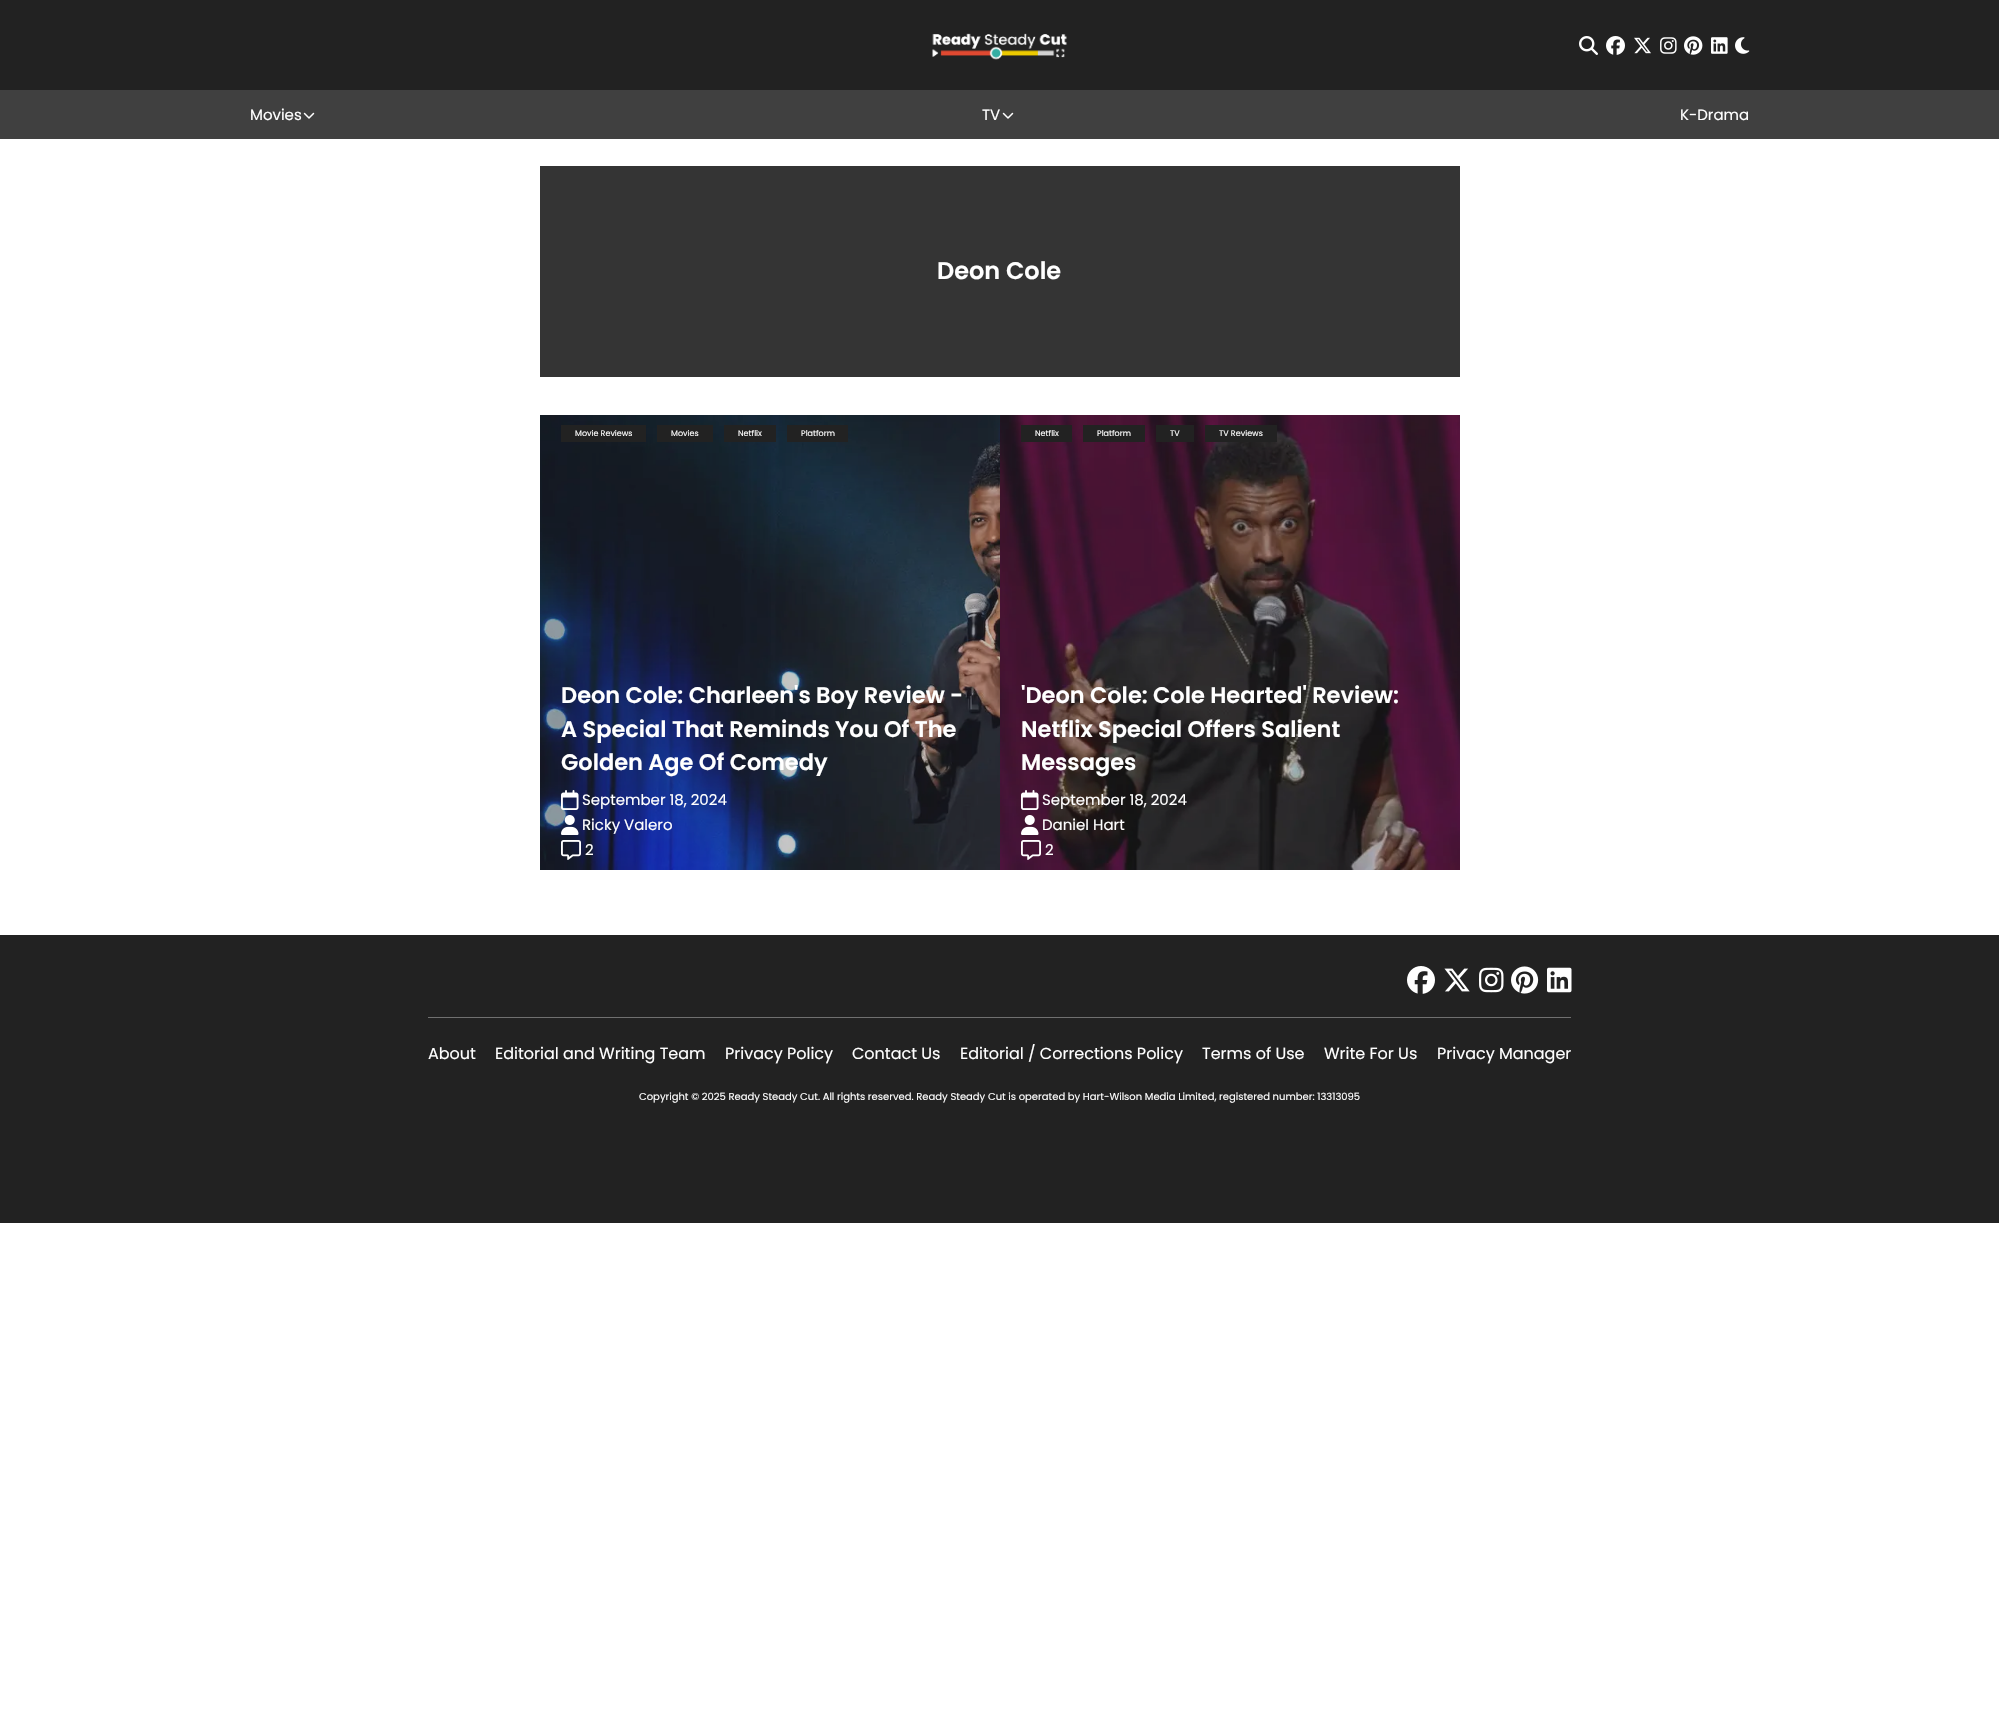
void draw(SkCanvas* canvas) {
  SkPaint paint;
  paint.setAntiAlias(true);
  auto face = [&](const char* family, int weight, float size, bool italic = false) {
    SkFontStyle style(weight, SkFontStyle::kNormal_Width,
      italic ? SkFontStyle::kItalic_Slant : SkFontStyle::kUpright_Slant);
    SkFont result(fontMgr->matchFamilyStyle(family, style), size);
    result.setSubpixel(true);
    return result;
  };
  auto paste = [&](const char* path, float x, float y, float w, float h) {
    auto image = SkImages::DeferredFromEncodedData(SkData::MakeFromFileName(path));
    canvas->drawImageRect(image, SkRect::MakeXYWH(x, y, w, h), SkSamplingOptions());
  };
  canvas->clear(0xffffffff);
  paint.setColor(0xff222222);
  canvas->drawRect(SkRect::MakeXYWH(0, 0, 1999, 90), paint);
  paste("img/1.png", 932, 33, 135, 27);
  paste("img/2.png", 1579, 36, 19, 19);
  paste("img/3.png", 1606, 36, 19, 19);
  paste("img/4.png", 1634, 37, 17, 17);
  paste("img/5.png", 1660, 37, 17, 17);
  paste("img/6.png", 1684, 36, 19, 19);
  paste("img/7.png", 1711, 37, 17, 17);
  paste("img/8.png", 1735, 37, 15, 17);
  paint.setColor(0xff404040);
  canvas->drawRect(SkRect::MakeXYWH(0, 90, 1999, 49), paint);
  paste("img/9.png", 303, 112, 12, 7);
  paste("img/9.png", 1002, 112, 12, 7);
  paint.setColor(0xff343434);
  canvas->drawRect(SkRect::MakeXYWH(540, 166, 920, 211), paint);
  paste("img/10.png", 540, 415, 460, 455);
  {
    const struct { float x, y, w, h; SkColor color; } items[] = {
      {561, 425, 85, 17, 0xff222222},
      {657, 425, 56, 17, 0xff222222},
      {724, 425, 52, 17, 0xff222222},
      {787, 425, 61, 17, 0xff222222},
    };
    for (auto [x, y, w, h, color] : items) {
      paint.setColor(color);
      canvas->drawRect(SkRect::MakeXYWH(x, y, w, h), paint);
    }
  }
  paste("img/11.png", 561, 790, 18, 20);
  paste("img/12.png", 561, 815, 18, 20);
  paste("img/13.png", 561, 840, 20, 20);
  paste("img/14.png", 1000, 415, 460, 455);
  {
    const struct { float x, y, w, h; SkColor color; } items[] = {
      {1021, 425, 51, 17, 0xff222222},
      {1083, 425, 62, 17, 0xff222222},
      {1156, 425, 38, 17, 0xff222222},
      {1205, 425, 72, 17, 0xff222222},
    };
    for (auto [x, y, w, h, color] : items) {
      paint.setColor(color);
      canvas->drawRect(SkRect::MakeXYWH(x, y, w, h), paint);
    }
  }
  paste("img/15.png", 1021, 790, 18, 20);
  paste("img/16.png", 1021, 815, 18, 20);
  paste("img/17.png", 1021, 840, 20, 20);
  canvas->drawRect(SkRect::MakeXYWH(0, 935, 1999, 288), paint);
  paint.setColor(0xff707070);
  canvas->drawRect(SkRect::MakeXYWH(428, 1017, 1143, 1), paint);
  paste("img/18.png", 1407, 966, 28, 28);
  paste("img/19.png", 1444, 968, 26, 24);
  paste("img/20.png", 1479, 967, 25, 26);
  paste("img/21.png", 1511, 966, 28, 28);
  paste("img/22.png", 1547, 967, 25, 26);
  auto f0 = face("Poppins", 400, 15);
  paint.setColor(0xffffffff);
  {
    const struct { const char* s; float x, y; } items[] = {
      {"Movies", 250, 120},
      {"TV", 982, 120},
      {"K-Drama", 1680, 120},
    };
    for (auto [s, x, y] : items) {
      canvas->drawString(s, x, y, f0, paint);
    }
  }
  auto f1 = face("Poppins", 600, 24);
  canvas->drawString("Deon Cole", 937, 279, f1, paint);
  auto f2 = face("Poppins", 400, 8);
  {
    const struct { const char* s; float x, y; } items[] = {
      {"Movie Reviews", 575, 436},
      {"Movies", 671, 436},
      {"Netflix", 738, 436},
      {"Platform", 801, 436},
    };
    for (auto [s, x, y] : items) {
      canvas->drawString(s, x, y, f2, paint);
    }
  }
  auto f3 = face("Poppins", 600, 22.5f);
  {
    const struct { const char* s; float x, y; } items[] = {
      {"Deon Cole: Charleen's Boy Review -", 561, 703},
      {"A Special That Reminds You Of The", 561, 737},
      {"Golden Age Of Comedy", 561, 770},
    };
    for (auto [s, x, y] : items) {
      canvas->drawString(s, x, y, f3, paint);
    }
  }
  {
    const struct { const char* s; float x, y; } items[] = {
      {"September 18, 2024", 582, 805},
      {"Ricky Valero", 582, 830},
      {"2", 585, 855},
    };
    for (auto [s, x, y] : items) {
      canvas->drawString(s, x, y, f0, paint);
    }
  }
  {
    const struct { const char* s; float x, y; } items[] = {
      {"Netflix", 1035, 436},
      {"Platform", 1097, 436},
      {"TV", 1170, 436},
      {"TV Reviews", 1219, 436},
    };
    for (auto [s, x, y] : items) {
      canvas->drawString(s, x, y, f2, paint);
    }
  }
  {
    const struct { const char* s; float x, y; } items[] = {
      {"'Deon Cole: Cole Hearted' Review:", 1021, 703},
      {"Netflix Special Offers Salient", 1021, 737},
      {"Messages", 1021, 770},
    };
    for (auto [s, x, y] : items) {
      canvas->drawString(s, x, y, f3, paint);
    }
  }
  {
    const struct { const char* s; float x, y; } items[] = {
      {"September 18, 2024", 1042, 805},
      {"Daniel Hart", 1042, 830},
      {"2", 1045, 855},
    };
    for (auto [s, x, y] : items) {
      canvas->drawString(s, x, y, f0, paint);
    }
  }
  auto f4 = face("Poppins", 400, 16);
  {
    const struct { const char* s; float x, y; } items[] = {
      {"About", 428, 1059},
      {"Editorial and Writing Team", 495, 1059},
      {"Privacy Policy", 725, 1059},
      {"Contact Us", 852, 1059},
      {"Editorial / Corrections Policy", 960, 1059},
      {"Terms of Use", 1202, 1059},
      {"Write For Us", 1324, 1059},
      {"Privacy Manager", 1437, 1059},
    };
    for (auto [s, x, y] : items) {
      canvas->drawString(s, x, y, f4, paint);
    }
  }
  auto f5 = face("Poppins", 400, 10);
  canvas->drawString("Copyright © 2025 Ready Steady Cut. All rights reserved. Ready Steady Cut is operated by Hart-Wilson Media Limited, registered number: 13313095", 639, 1100, f5, paint);
}
